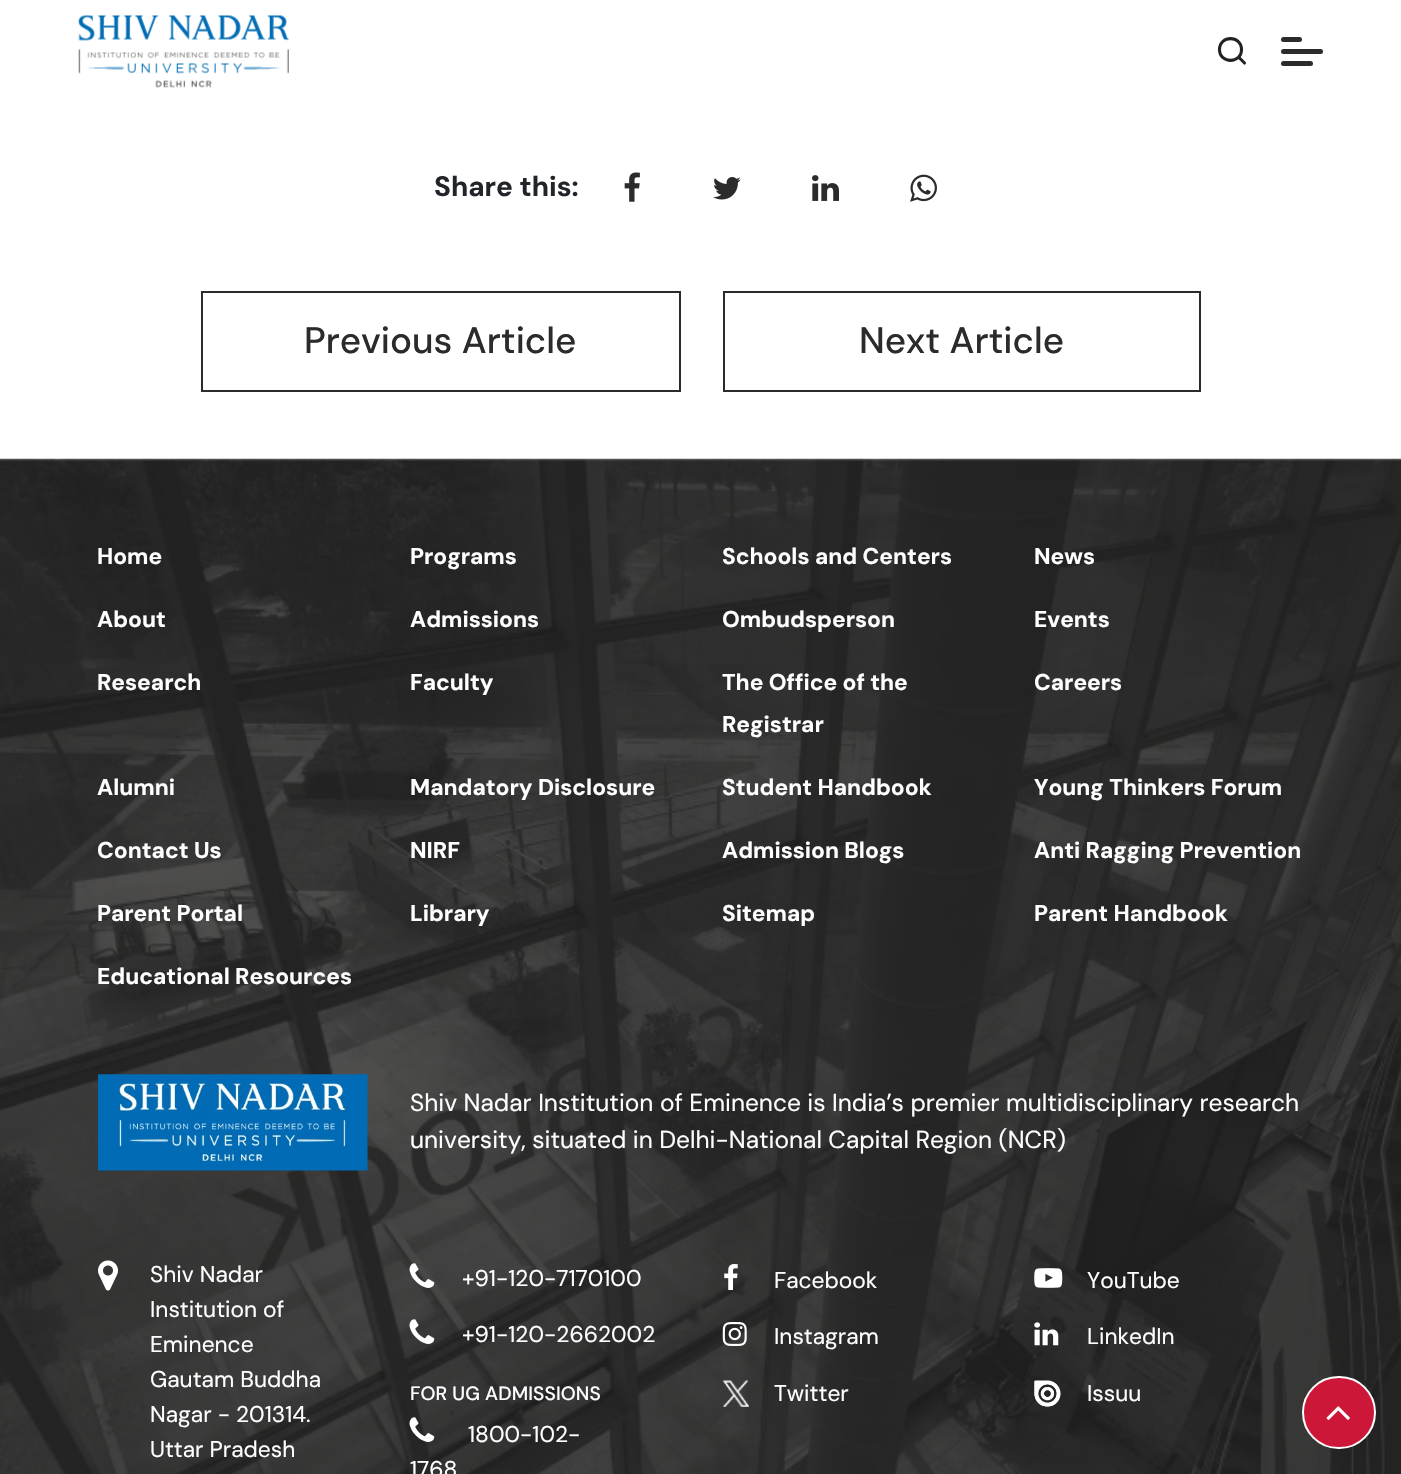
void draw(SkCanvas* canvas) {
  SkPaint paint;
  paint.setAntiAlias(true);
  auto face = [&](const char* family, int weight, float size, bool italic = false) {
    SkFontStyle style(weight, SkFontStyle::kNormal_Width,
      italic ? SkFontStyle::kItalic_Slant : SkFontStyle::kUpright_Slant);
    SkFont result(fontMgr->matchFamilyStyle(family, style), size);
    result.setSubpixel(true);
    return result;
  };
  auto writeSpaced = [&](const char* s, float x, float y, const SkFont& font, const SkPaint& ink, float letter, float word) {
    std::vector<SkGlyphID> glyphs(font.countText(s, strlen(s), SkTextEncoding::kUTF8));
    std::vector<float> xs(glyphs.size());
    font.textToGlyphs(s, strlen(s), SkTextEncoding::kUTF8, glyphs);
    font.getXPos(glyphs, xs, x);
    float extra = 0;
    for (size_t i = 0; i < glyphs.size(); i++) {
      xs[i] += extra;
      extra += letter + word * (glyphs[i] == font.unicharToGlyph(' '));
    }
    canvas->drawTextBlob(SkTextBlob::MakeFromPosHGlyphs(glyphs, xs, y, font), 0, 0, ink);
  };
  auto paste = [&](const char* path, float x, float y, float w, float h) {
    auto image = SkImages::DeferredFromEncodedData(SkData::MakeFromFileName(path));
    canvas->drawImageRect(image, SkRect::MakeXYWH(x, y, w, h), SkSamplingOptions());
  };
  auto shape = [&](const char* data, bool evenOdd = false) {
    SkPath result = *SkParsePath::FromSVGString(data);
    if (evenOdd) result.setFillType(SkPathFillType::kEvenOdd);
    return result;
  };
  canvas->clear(0xffffffff);
  paste("img/1.png", 78, 15, 211, 73);
  paint.setStroke(true);
  paint.setStrokeWidth(3.1f);
  paint.setStrokeCap(SkPaint::kRound_Cap);
  paint.setColor(0xff222221);
  canvas->drawPath(shape("M1244.5 63L1238.5 57M1241.5 49.5C1241.5 64 1219.5 64 1219.5 49.5C1219.5 35 1241.5 35 1241.5 49.5Z"), paint);
  paint.setStroke(false);
  paint.setColor(0xff2b2b2b);
  canvas->drawRoundRect(SkRect::MakeXYWH(1281, 37, 21, 5), 2.5f, 2.5f, paint);
  canvas->drawRoundRect(SkRect::MakeXYWH(1281, 49, 42, 5), 2.5f, 2.5f, paint);
  canvas->drawRoundRect(SkRect::MakeXYWH(1281, 61, 32, 5), 2.5f, 2.5f, paint);
  paste("img/2.png", 624, 172, 16, 30);
  paste("img/3.png", 713, 177, 28, 23);
  paste("img/4.png", 812, 175, 27, 26);
  paste("img/5.png", 910, 174, 27, 28);
  paint.setStroke(true);
  paint.setStrokeWidth(2);
  paint.setStrokeCap(SkPaint::kButt_Cap);
  canvas->drawRect(SkRect::MakeXYWH(202, 292, 478, 99), paint);
  canvas->drawRect(SkRect::MakeXYWH(724, 292, 476, 99), paint);
  paste("img/6.png", 0, 458, 1401, 1016);
  paste("img/7.png", 98, 1074, 270, 97);
  paste("img/8.png", 98, 1260, 20, 31);
  paste("img/9.png", 409, 1263, 26, 25);
  paste("img/10.png", 409, 1319, 26, 25);
  paste("img/11.png", 409, 1417, 26, 25);
  paste("img/12.png", 724, 1264, 14, 26);
  paste("img/13.png", 722, 1322, 25, 24);
  paste("img/14.png", 722, 1380, 27, 27);
  paste("img/15.png", 1034, 1268, 29, 20);
  paste("img/16.png", 1034, 1322, 25, 24);
  paste("img/17.png", 1034, 1380, 27, 27);
  paint.setStroke(false);
  paint.setColor(0xffcd1739);
  canvas->drawRoundRect(SkRect::MakeXYWH(1303, 1377, 72, 71), 35.5f, 35.5f, paint);
  paint.setStroke(true);
  paint.setColor(0xffffffff);
  canvas->drawRoundRect(SkRect::MakeXYWH(1303, 1377, 72, 71), 35.5f, 35.5f, paint);
  paste("img/18.png", 1326, 1406, 24, 14);
  auto f0 = face("DM Sans", 700, 28);
  paint.setStroke(false);
  paint.setColor(0xff212529);
  canvas->drawString("Share this:", 434, 196, f0, paint);
  auto f1 = face("DM Sans", 500, 36.75f);
  paint.setColor(0xff2b2b2b);
  canvas->drawString("Previous Article", 304, 353, f1, paint);
  canvas->drawString("Next Article", 859, 353, f1, paint);
  auto f2 = face("DM Sans", 700, 22.75f);
  paint.setColor(0xffffffff);
  {
    const struct { const char* s; float x, y; } items[] = {
      {"Home", 97, 564},
      {"About", 97, 627},
      {"Research", 97, 690},
      {"Programs", 410, 564},
      {"Admissions", 410, 627},
      {"Faculty", 410, 690},
      {"Schools and Centers", 722, 564},
      {"Ombudsperson", 722, 627},
      {"The Office of the", 722, 690},
      {"Registrar", 722, 732},
      {"News", 1034, 564},
      {"Events", 1034, 627},
      {"Careers", 1034, 690},
      {"Alumni", 97, 795},
      {"Contact Us", 97, 858},
      {"Parent Portal", 97, 921},
      {"Mandatory Disclosure", 410, 795},
      {"NIRF", 410, 858},
      {"Library", 410, 921},
      {"Student Handbook", 722, 795},
      {"Admission Blogs", 722, 858},
      {"Sitemap", 722, 921},
      {"Young Thinkers Forum", 1034, 795},
      {"Anti Ragging Prevention", 1034, 858},
      {"Parent Handbook", 1034, 921},
      {"Educational Resources", 97, 984},
    };
    for (auto [s, x, y] : items) {
      canvas->drawString(s, x, y, f2, paint);
    }
  }
  auto f3 = face("DM Sans", 400, 24.5f);
  canvas->drawString("Shiv Nadar Institution of Eminence is India’s premier multidisciplinary research", 410, 1111, f3, paint);
  canvas->drawString("university, situated in Delhi-National Capital Region (NCR)", 410, 1148, f3, paint);
  auto f4 = face("DM Sans", 400, 22.75f);
  {
    const struct { const char* s; float x, y; } items[] = {
      {"Shiv Nadar", 150, 1282},
      {"Institution of", 150, 1317},
      {"Eminence", 150, 1352},
      {"Gautam Buddha", 150, 1387},
      {"Nagar - 201314.", 150, 1422},
      {"Uttar Pradesh", 150, 1457},
      {"+91-120-7170100", 462, 1286},
      {"+91-120-2662002", 462, 1342},
    };
    for (auto [s, x, y] : items) {
      canvas->drawString(s, x, y, f4, paint);
    }
  }
  auto f5 = face("DM Sans", 500, 19.25f);
  writeSpaced("FOR UG ADMISSIONS", 410, 1400, f5, paint, 0.1f, 0);
  {
    const struct { const char* s; float x, y; } items[] = {
      {"1800-102-", 468, 1442},
      {"1768", 410, 1477},
      {"Facebook", 774, 1288},
      {"Instagram", 774, 1344},
      {"Twitter", 774, 1401},
      {"YouTube", 1087, 1288},
      {"LinkedIn", 1087, 1344},
      {"Issuu", 1087, 1401},
    };
    for (auto [s, x, y] : items) {
      canvas->drawString(s, x, y, f4, paint);
    }
  }
}
